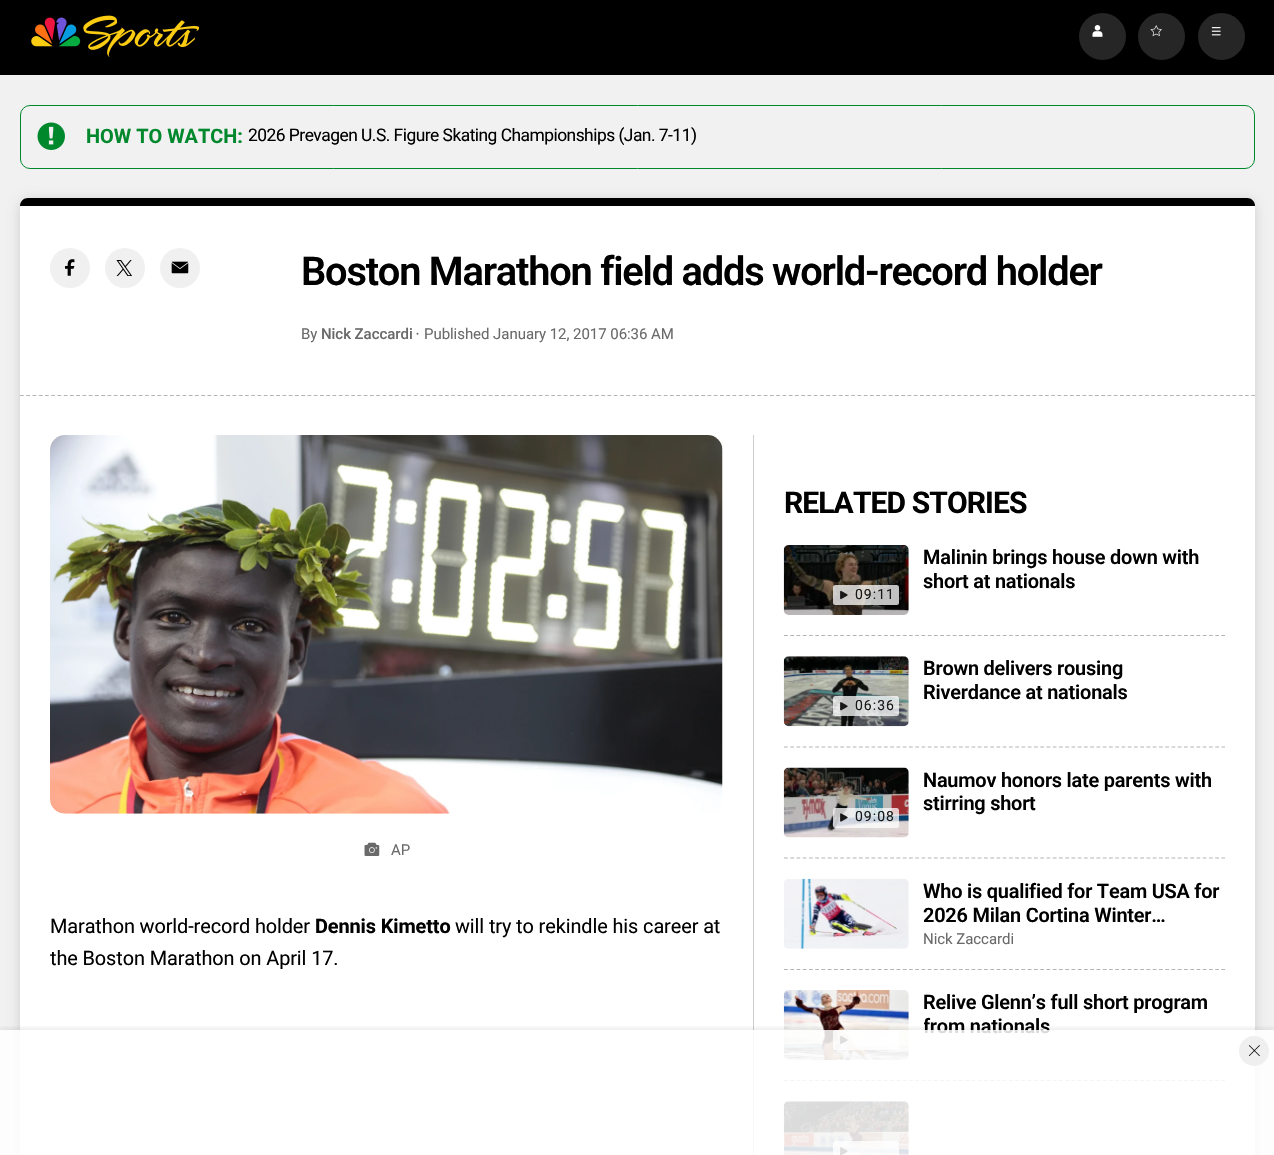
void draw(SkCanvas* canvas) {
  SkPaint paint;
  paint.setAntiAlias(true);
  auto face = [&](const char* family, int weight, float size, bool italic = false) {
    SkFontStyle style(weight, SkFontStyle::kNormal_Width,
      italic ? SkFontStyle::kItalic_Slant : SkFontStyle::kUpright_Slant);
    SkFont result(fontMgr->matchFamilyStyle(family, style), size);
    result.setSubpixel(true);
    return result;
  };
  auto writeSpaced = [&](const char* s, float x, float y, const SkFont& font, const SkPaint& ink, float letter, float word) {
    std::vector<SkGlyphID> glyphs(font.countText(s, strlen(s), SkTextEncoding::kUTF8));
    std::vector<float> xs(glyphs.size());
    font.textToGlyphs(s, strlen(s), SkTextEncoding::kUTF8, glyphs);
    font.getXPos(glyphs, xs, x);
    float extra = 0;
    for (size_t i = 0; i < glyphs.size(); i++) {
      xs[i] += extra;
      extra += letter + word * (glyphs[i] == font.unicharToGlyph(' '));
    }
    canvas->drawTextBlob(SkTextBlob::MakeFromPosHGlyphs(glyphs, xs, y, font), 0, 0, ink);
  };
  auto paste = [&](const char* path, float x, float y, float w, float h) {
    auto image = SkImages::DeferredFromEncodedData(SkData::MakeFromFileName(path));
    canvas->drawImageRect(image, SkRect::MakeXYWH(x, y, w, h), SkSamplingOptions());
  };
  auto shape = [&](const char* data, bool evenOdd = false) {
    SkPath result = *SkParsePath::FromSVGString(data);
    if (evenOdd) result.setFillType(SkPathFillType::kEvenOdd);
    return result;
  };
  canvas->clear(0xfff1f1f1);
  paint.setColor(0xff000000);
  canvas->drawRect(SkRect::MakeXYWH(0, 0, 1274, 75), paint);
  paste("img/1.png", 31, 15, 168, 42);
  paint.setColor(0xff262626);
  canvas->drawCircle(1102.5f, 36.5f, 23.5f, paint);
  paste("img/2.png", 1092, 25, 11, 12);
  canvas->drawCircle(1161.5f, 36.5f, 23.5f, paint);
  paste("img/3.png", 1150, 25, 12, 12);
  canvas->drawCircle(1221.5f, 36.5f, 23.5f, paint);
  paste("img/4.png", 1211, 27, 10, 9);
  paint.setStroke(true);
  paint.setStrokeWidth(1);
  paint.setColor(0xff00882d);
  canvas->drawRoundRect(SkRect::MakeXYWH(20.5f, 105.5f, 1234, 63), 9.5f, 9.5f, paint);
  paste("img/5.png", 37, 122, 28, 28);
  paint.setStroke(false);
  paint.setColor(0x26000000);
  paint.setMaskFilter(SkMaskFilter::MakeBlur(kNormal_SkBlurStyle, 6));
  canvas->drawRoundRect(SkRect::MakeXYWH(20, 200, 1235, 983), 10, 10, paint);
  paint.setMaskFilter(nullptr);
  paint.setColor(0xffffffff);
  canvas->drawRoundRect(SkRect::MakeXYWH(20, 198, 1235, 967), 10, 10, paint);
  paint.setColor(0xff000000);
  canvas->drawPath(shape("M28 198H1247C1251.5 198 1255 201.5 1255 206H20C20 201.5 23.5 198 28 198Z"), paint);
  paint.setStroke(true);
  paint.setStrokeWidth(1.2f);
  paint.setColor(0xffb3b3b3);
  paint.setPathEffect(SkDashPathEffect::Make({{3.75f, 2.5f}}, 0));
  canvas->drawPath(shape("M20 395.5H1255"), paint);
  paint.setPathEffect(nullptr);
  paint.setStroke(false);
  paint.setColor(0xfff0f0f0);
  canvas->drawCircle(70, 268, 20, paint);
  paste("img/6.png", 65, 259, 10, 17);
  canvas->drawCircle(125, 268, 20, paint);
  paste("img/7.png", 116, 260, 16, 16);
  canvas->drawCircle(180, 268, 20, paint);
  paste("img/8.png", 171, 261, 18, 13);
  paint.setColor(0xff6a6a6a);
  canvas->drawCircle(417.5f, 333.7f, 1, paint);
  paste("img/9.png", 50, 435, 673, 379);
  paste("img/10.png", 364, 842, 16, 14);
  paint.setColor(0xffcccccc);
  canvas->drawRect(SkRect::MakeXYWH(753, 435, 1, 720), paint);
  paste("img/11.png", 783, 545, 126, 70);
  paint.setColor(0xbfffffff);
  canvas->drawRoundRect(SkRect::MakeXYWH(833, 585, 66, 20), 2.5f, 2.5f, paint);
  paste("img/12.png", 840, 590, 8, 10);
  paint.setStroke(true);
  paint.setColor(0xffb3b3b3);
  paint.setPathEffect(SkDashPathEffect::Make({{3.75f, 2.5f}}, 0));
  canvas->drawPath(shape("M784 635.5H1225"), paint);
  paint.setPathEffect(nullptr);
  paste("img/13.png", 783, 656, 126, 71);
  paint.setStroke(false);
  paint.setColor(0xbfffffff);
  canvas->drawRoundRect(SkRect::MakeXYWH(833, 696, 66, 20), 2.5f, 2.5f, paint);
  paste("img/14.png", 840, 702, 8, 9);
  paint.setStroke(true);
  paint.setColor(0xffb3b3b3);
  paint.setPathEffect(SkDashPathEffect::Make({{3.75f, 2.5f}}, 0));
  canvas->drawPath(shape("M784 747H1225"), paint);
  paint.setPathEffect(nullptr);
  paste("img/15.png", 783, 767, 126, 71);
  paint.setStroke(false);
  paint.setColor(0xbfffffff);
  canvas->drawRoundRect(SkRect::MakeXYWH(833, 808, 66, 20), 2.5f, 2.5f, paint);
  paste("img/16.png", 840, 813, 8, 9);
  paint.setStroke(true);
  paint.setColor(0xffb3b3b3);
  paint.setPathEffect(SkDashPathEffect::Make({{3.75f, 2.5f}}, 0));
  canvas->drawPath(shape("M784 858H1225"), paint);
  paint.setPathEffect(nullptr);
  paste("img/17.png", 784, 878, 125, 71);
  paint.setPathEffect(SkDashPathEffect::Make({{3.75f, 2.5f}}, 0));
  canvas->drawPath(shape("M784 969.5H1225"), paint);
  paint.setPathEffect(nullptr);
  paste("img/18.png", 783, 990, 126, 70);
  paint.setStroke(false);
  paint.setColor(0xbfffffff);
  canvas->drawRoundRect(SkRect::MakeXYWH(833, 1030, 66, 20), 2.5f, 2.5f, paint);
  paste("img/19.png", 840, 1035, 8, 10);
  paint.setStroke(true);
  paint.setColor(0xffb3b3b3);
  paint.setPathEffect(SkDashPathEffect::Make({{3.75f, 2.5f}}, 0));
  canvas->drawPath(shape("M784 1080.5H1225"), paint);
  paint.setPathEffect(nullptr);
  paste("img/20.png", 783, 1101, 126, 54);
  paint.setStroke(false);
  paint.setColor(0xbfffffff);
  canvas->drawRoundRect(SkRect::MakeXYWH(833, 1141, 66, 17), 2.5f, 2.5f, paint);
  paste("img/21.png", 840, 1147, 8, 8);
  canvas->save();
  canvas->clipRect(SkRect::MakeXYWH(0, 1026, 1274, 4));
  paint.setColor(0x14000000);
  paint.setMaskFilter(SkMaskFilter::MakeBlur(kNormal_SkBlurStyle, 2.5f));
  canvas->drawRect(SkRect::MakeXYWH(0, 1028, 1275, 125), paint);
  paint.setMaskFilter(nullptr);
  canvas->restore();
  auto f0 = face("Roboto", 700, 19.9f);
  paint.setColor(0xff00882d);
  canvas->drawString("HOW TO WATCH:", 86, 143, f0, paint);
  auto f1 = face("Roboto", 400, 17.4f);
  paint.setColor(0xff000000);
  writeSpaced("2026 Prevagen U.S. Figure Skating Championships (Jan. 7-11)", 248, 141, f1, paint, -0.52f, 0);
  auto f2 = face("Roboto", 600, 39.8f);
  writeSpaced("Boston Marathon field adds world-record holder", 301, 285, f2, paint, -1.2f, 0);
  auto f3 = face("Roboto", 400, 15);
  paint.setColor(0xff6a6a6a);
  writeSpaced("By", 301, 339, f3, paint, -0.05f, 0);
  auto f4 = face("Roboto", 500, 15);
  writeSpaced("Nick Zaccardi", 321, 339, f4, paint, -0.05f, 0);
  writeSpaced("Published January 12, 2017 06:36 AM", 424, 339, f3, paint, -0.05f, 0);
  writeSpaced("AP", 391, 855, f3, paint, -0.05f, 0);
  auto f5 = face("Roboto", 400, 19.9f);
  paint.setColor(0xff000000);
  writeSpaced("Marathon world-record holder", 50, 933, f5, paint, -0.1f, 0);
  writeSpaced("Dennis Kimetto", 315, 933, f0, paint, -0.1f, 0);
  writeSpaced("will try to rekindle his career at", 455, 933, f5, paint, -0.1f, 0);
  writeSpaced("the Boston Marathon on April 17.", 50, 965, f5, paint, -0.1f, 0);
  auto f6 = face("Roboto", 700, 30);
  writeSpaced("RELATED STORIES", 784, 513, f6, paint, -0.9f, 0);
  auto f7 = face("Roboto", 600, 19.9f);
  writeSpaced("Malinin brings house down with", 923, 564, f7, paint, -0.2f, 0);
  writeSpaced("short at nationals", 923, 588, f7, paint, -0.2f, 0);
  auto f8 = face("Roboto", 400, 14);
  paint.setColor(0xff181818);
  writeSpaced("09:11", 855, 599, f8, paint, 1, 0);
  paint.setColor(0xff000000);
  writeSpaced("Brown delivers rousing", 923, 675, f7, paint, -0.2f, 0);
  writeSpaced("Riverdance at nationals", 923, 699, f7, paint, -0.2f, 0);
  paint.setColor(0xff181818);
  writeSpaced("06:36", 855, 710, f8, paint, 1, 0);
  paint.setColor(0xff000000);
  writeSpaced("Naumov honors late parents with", 923, 787, f7, paint, -0.2f, 0);
  writeSpaced("stirring short", 923, 810, f7, paint, -0.2f, 0);
  paint.setColor(0xff181818);
  writeSpaced("09:08", 855, 821, f8, paint, 1, 0);
  paint.setColor(0xff000000);
  writeSpaced("Who is qualified for Team USA for", 923, 898, f7, paint, -0.2f, 0);
  writeSpaced("2026 Milan Cortina Winter…", 923, 922, f7, paint, -0.2f, 0);
  paint.setColor(0xff6a6a6a);
  writeSpaced("Nick Zaccardi", 923, 944, f3, paint, -0.05f, 0);
  paint.setColor(0xff000000);
  writeSpaced("Relive Glenn’s full short program", 923, 1009, f7, paint, -0.2f, 0);
  canvas->save();
  canvas->clipRect(SkRect::MakeXYWH(924, 990, 301, 48));
  writeSpaced("from nationals", 923, 1033, f7, paint, -0.2f, 0);
  canvas->restore();
  paint.setColor(0xd9ffffff);
  canvas->drawRect(SkRect::MakeXYWH(0, 1030, 1274, 125), paint);
  paint.setColor(0xffefefef);
  canvas->drawCircle(1254, 1051, 15, paint);
  paste("img/22.png", 1249, 1045, 11, 11);
}
